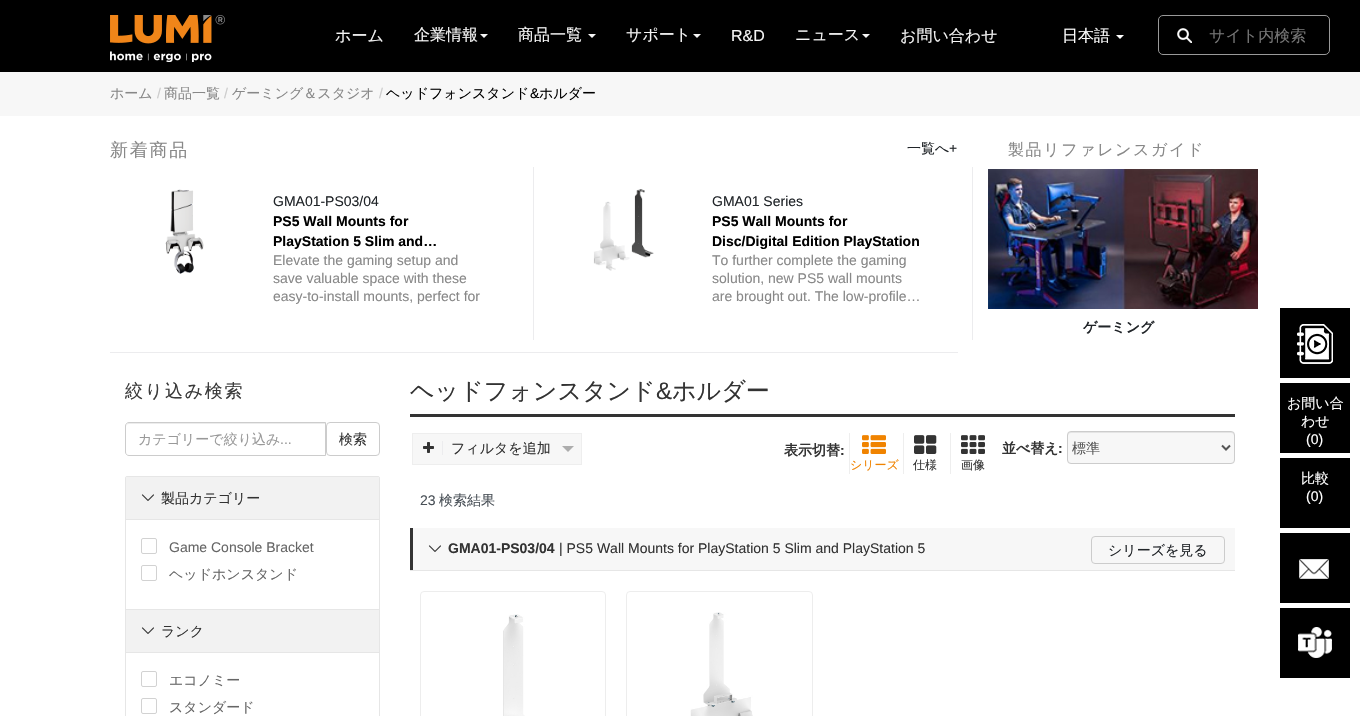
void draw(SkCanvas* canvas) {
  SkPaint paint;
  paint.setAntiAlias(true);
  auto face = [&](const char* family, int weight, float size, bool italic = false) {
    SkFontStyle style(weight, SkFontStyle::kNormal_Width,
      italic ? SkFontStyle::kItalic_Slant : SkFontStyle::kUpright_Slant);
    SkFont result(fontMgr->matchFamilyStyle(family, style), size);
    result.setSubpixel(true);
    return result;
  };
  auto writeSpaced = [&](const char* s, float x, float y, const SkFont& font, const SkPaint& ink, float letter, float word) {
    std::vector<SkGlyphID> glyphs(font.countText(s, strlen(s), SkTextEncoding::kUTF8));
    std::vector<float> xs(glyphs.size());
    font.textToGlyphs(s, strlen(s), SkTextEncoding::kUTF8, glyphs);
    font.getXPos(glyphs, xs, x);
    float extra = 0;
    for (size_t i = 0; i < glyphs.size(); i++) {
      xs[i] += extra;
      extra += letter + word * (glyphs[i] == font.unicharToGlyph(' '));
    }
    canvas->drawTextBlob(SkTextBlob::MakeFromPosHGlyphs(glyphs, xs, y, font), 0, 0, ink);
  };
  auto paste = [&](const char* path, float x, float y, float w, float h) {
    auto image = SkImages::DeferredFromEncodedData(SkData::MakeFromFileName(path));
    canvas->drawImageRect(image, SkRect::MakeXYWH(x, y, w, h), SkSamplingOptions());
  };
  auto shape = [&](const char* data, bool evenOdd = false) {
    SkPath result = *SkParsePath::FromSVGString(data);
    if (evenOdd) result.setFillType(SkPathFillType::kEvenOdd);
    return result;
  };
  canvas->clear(0xffffffff);
  paint.setColor(0xff000000);
  canvas->drawRect(SkRect::MakeXYWH(0, 0, 1360, 72), paint);
  paste("img/1.png", 110, 15, 115, 47);
  paint.setColor(0xfff5f5f5);
  canvas->drawPath(shape("M480 34H488L484 38Z"), paint);
  canvas->drawPath(shape("M588 34H596L592 38Z"), paint);
  canvas->drawPath(shape("M693 34H701L697 38Z"), paint);
  canvas->drawPath(shape("M862 34H870L866 38Z"), paint);
  paint.setColor(0xffffffff);
  canvas->drawPath(shape("M1116 35H1124L1120 39Z"), paint);
  paint.setStroke(true);
  paint.setStrokeWidth(1);
  paint.setColor(0xff999999);
  canvas->drawRoundRect(SkRect::MakeXYWH(1158.5f, 15.5f, 171, 39), 4.5f, 4.5f, paint);
  paste("img/2.png", 1177, 28, 15, 15);
  paint.setStroke(false);
  {
    const struct { float x, y, w, h; SkColor color; } items[] = {
      {0, 72, 1360, 44, 0xfff7f7f7},
      {110, 352, 848, 1, 0xffececee},
      {533, 167, 1, 173, 0xffececee},
    };
    for (auto [x, y, w, h, color] : items) {
      paint.setColor(color);
      canvas->drawRect(SkRect::MakeXYWH(x, y, w, h), paint);
    }
  }
  paste("img/3.png", 165, 189, 39, 85);
  canvas->drawRect(SkRect::MakeXYWH(972, 167, 1, 173), paint);
  paste("img/4.png", 593, 189, 61, 82);
  paste("img/5.png", 988, 169, 270, 140);
  paint.setColor(0xffececec);
  canvas->drawPath(shape("M129 424H325V423H129C127 423 126 425 126 427C126 425 127 424 129 424Z"), paint);
  paint.setStroke(true);
  paint.setColor(0xffcccccc);
  canvas->drawPath(shape("M129 422.5H325.5V455.5H129C127 455.5 125.5 454 125.5 452V426C125.5 424 127 422.5 129 422.5Z"), paint);
  canvas->drawRoundRect(SkRect::MakeXYWH(326.5f, 422.5f, 53, 33), 3.5f, 3.5f, paint);
  paint.setColor(0xffe6e6e6);
  canvas->drawRoundRect(SkRect::MakeXYWH(125.5f, 476.5f, 254, 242), 1.5f, 1.5f, paint);
  paint.setStroke(false);
  paint.setColor(0xfff2f2f2);
  canvas->drawRect(SkRect::MakeXYWH(126, 477, 253, 42), paint);
  paste("img/6.png", 141, 494, 13, 7);
  paint.setColor(0xffe6e6e6);
  canvas->drawRect(SkRect::MakeXYWH(126, 519, 253, 1), paint);
  paint.setStroke(true);
  paint.setColor(0xffd2d2d2);
  canvas->drawRoundRect(SkRect::MakeXYWH(141.5f, 538.5f, 15, 15), 1.5f, 1.5f, paint);
  canvas->drawRoundRect(SkRect::MakeXYWH(141.5f, 565.5f, 15, 15), 1.5f, 1.5f, paint);
  paint.setStroke(false);
  paint.setColor(0xffe6e6e6);
  canvas->drawRect(SkRect::MakeXYWH(126, 609, 253, 1), paint);
  paint.setColor(0xfff2f2f2);
  canvas->drawRect(SkRect::MakeXYWH(126, 610, 253, 42), paint);
  paste("img/6.png", 141, 627, 13, 7);
  paint.setColor(0xffe6e6e6);
  canvas->drawRect(SkRect::MakeXYWH(126, 652, 253, 1), paint);
  paint.setStroke(true);
  paint.setColor(0xffd2d2d2);
  canvas->drawRoundRect(SkRect::MakeXYWH(141.5f, 671.5f, 15, 15), 1.5f, 1.5f, paint);
  canvas->drawRoundRect(SkRect::MakeXYWH(141.5f, 698.5f, 15, 15), 1.5f, 1.5f, paint);
  paint.setStroke(false);
  paint.setColor(0xff333333);
  canvas->drawRect(SkRect::MakeXYWH(410, 414, 825, 3), paint);
  paint.setColor(0xfff7f7f7);
  canvas->drawRect(SkRect::MakeXYWH(412.5f, 433.5f, 169, 31), paint);
  paint.setStroke(true);
  paint.setColor(0xffeeeeee);
  canvas->drawRect(SkRect::MakeXYWH(412.5f, 433.5f, 169, 31), paint);
  paint.setStroke(false);
  paint.setColor(0xffececee);
  canvas->drawRect(SkRect::MakeXYWH(442, 441, 1, 14), paint);
  paste("img/7.png", 423, 442, 11, 11);
  paint.setColor(0xffadadad);
  canvas->drawPath(shape("M562 446H574L568 452Z"), paint);
  paint.setColor(0xffeeeeee);
  canvas->drawRect(SkRect::MakeXYWH(849, 433, 1, 41), paint);
  paste("img/8.png", 862, 435, 24, 19);
  canvas->drawRect(SkRect::MakeXYWH(903, 433, 1, 41), paint);
  paste("img/9.png", 914, 435, 23, 19);
  canvas->drawRect(SkRect::MakeXYWH(950, 433, 1, 41), paint);
  paste("img/10.png", 961, 435, 24, 19);
  paint.setColor(0xfff7f7f7);
  canvas->drawRoundRect(SkRect::MakeXYWH(1067, 431, 168, 33), 4, 4, paint);
  paint.setColor(0xffe4e4e4);
  canvas->drawPath(shape("M1071 433H1231C1233 433 1234 434 1234 436V435C1234 433 1233 432 1231 432H1071C1069 432 1068 433 1068 435V436C1068 434 1069 433 1071 433Z"), paint);
  paint.setStroke(true);
  paint.setColor(0xffcccccc);
  canvas->drawRoundRect(SkRect::MakeXYWH(1067.5f, 431.5f, 167, 32), 3.5f, 3.5f, paint);
  paint.setStrokeWidth(2);
  paint.setColor(0xff555555);
  canvas->drawPath(shape("M1222 445.5L1226 449.5L1230 445.5"), paint);
  paint.setStroke(false);
  paint.setColor(0xfff7f7f7);
  canvas->drawRect(SkRect::MakeXYWH(413, 528, 822, 42), paint);
  paint.setColor(0xff333333);
  canvas->drawRect(SkRect::MakeXYWH(410, 528, 3, 42), paint);
  paste("img/11.png", 428, 545, 13, 7);
  paint.setStroke(true);
  paint.setStrokeWidth(1);
  paint.setColor(0xffcccccc);
  canvas->drawRoundRect(SkRect::MakeXYWH(1091.5f, 536.5f, 133, 27), 3.5f, 3.5f, paint);
  paint.setStroke(false);
  paint.setColor(0xffe6e6e6);
  canvas->drawRect(SkRect::MakeXYWH(410, 570, 825, 1), paint);
  paint.setStroke(true);
  paint.setColor(0xffededed);
  canvas->drawRoundRect(SkRect::MakeXYWH(420.5f, 591.5f, 185, 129), 3.5f, 3.5f, paint);
  paste("img/12.png", 503, 614, 22, 102);
  canvas->drawRoundRect(SkRect::MakeXYWH(626.5f, 591.5f, 186, 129), 3.5f, 3.5f, paint);
  paste("img/13.png", 690, 612, 63, 104);
  paint.setStroke(false);
  paint.setColor(0xff000000);
  canvas->drawRect(SkRect::MakeXYWH(1280, 308, 70, 70), paint);
  paste("img/14.png", 1297, 324, 36, 40);
  {
    const struct { float x, y, w, h; SkColor color; } items[] = {
      {1280, 383, 70, 70, 0xff000000},
      {1280, 458, 70, 70, 0xff000000},
      {1280, 533, 70, 70, 0xff000000},
    };
    for (auto [x, y, w, h, color] : items) {
      paint.setColor(color);
      canvas->drawRect(SkRect::MakeXYWH(x, y, w, h), paint);
    }
  }
  paste("img/15.png", 1299, 559, 30, 20);
  canvas->drawRect(SkRect::MakeXYWH(1280, 608, 70, 70), paint);
  paste("img/16.png", 1298, 627, 34, 31);
  auto f0 = face("WenQuanYi Zen Hei", 500, 16);
  paint.setColor(0xfff5f5f5);
  {
    const struct { const char* s; float x, y; } items[] = {
      {"ホーム", 335, 41},
      {"企業情報", 414, 40},
      {"商品一覧", 518, 40},
      {"サポート", 626, 40},
    };
    for (auto [s, x, y] : items) {
      canvas->drawString(s, x, y, f0, paint);
    }
  }
  auto f1 = face("Liberation Sans", 400, 16);
  canvas->drawString("R&D", 731, 41, f1, paint);
  canvas->drawString("ニュース", 795, 40, f0, paint);
  canvas->drawString("お問い合わせ", 900, 41, f0, paint);
  paint.setColor(0xffffffff);
  canvas->drawString("日本語", 1062, 41, f0, paint);
  paint.setColor(0xff757575);
  canvas->drawString("サイト内検索", 1209, 41, f0, paint);
  auto f2 = face("WenQuanYi Zen Hei", 500, 14);
  paint.setColor(0xff888888);
  canvas->drawString("ホーム", 110, 98, f2, paint);
  auto f3 = face("Liberation Sans", 400, 14);
  paint.setColor(0xffcccccc);
  canvas->drawString("/", 157, 98, f3, paint);
  paint.setColor(0xff888888);
  canvas->drawString("商品一覧", 164, 98, f2, paint);
  paint.setColor(0xffcccccc);
  canvas->drawString("/", 224, 98, f3, paint);
  paint.setColor(0xff888888);
  canvas->drawString("ゲーミング＆スタジオ", 232, 98, f2, paint);
  paint.setColor(0xffcccccc);
  canvas->drawString("/", 379, 98, f3, paint);
  paint.setColor(0xff000000);
  canvas->drawString("ヘッドフォンスタンド", 386, 98, f2, paint);
  canvas->drawString("&", 530, 98, f3, paint);
  canvas->drawString("ホルダー", 539, 98, f2, paint);
  auto f4 = face("WenQuanYi Zen Hei", 500, 18);
  paint.setColor(0xff888888);
  writeSpaced("新着商品", 110, 156, f4, paint, 1.75f, 0);
  paint.setColor(0xff212529);
  canvas->drawString("一覧へ", 907, 153, f2, paint);
  canvas->drawString("+", 949, 153, f3, paint);
  canvas->drawString("GMA01-PS03/04", 273, 206, f3, paint);
  auto f5 = face("Liberation Sans", 700, 14);
  paint.setColor(0xff000000);
  canvas->drawString("PS5 Wall Mounts for", 273, 226, f5, paint);
  canvas->drawString("PlayStation 5 Slim and…", 273, 246, f5, paint);
  paint.setColor(0xff888888);
  {
    const struct { const char* s; float x, y; } items[] = {
      {"Elevate the gaming setup and", 273, 265},
      {"save valuable space with these", 273, 283},
      {"easy-to-install mounts, perfect for", 273, 301},
    };
    for (auto [s, x, y] : items) {
      canvas->drawString(s, x, y, f3, paint);
    }
  }
  paint.setColor(0xff212529);
  canvas->drawString("GMA01 Series", 712, 206, f3, paint);
  paint.setColor(0xff000000);
  canvas->drawString("PS5 Wall Mounts for", 712, 226, f5, paint);
  canvas->drawString("Disc/Digital Edition PlayStation", 712, 246, f5, paint);
  paint.setColor(0xff888888);
  {
    const struct { const char* s; float x, y; } items[] = {
      {"To further complete the gaming", 712, 265},
      {"solution, new PS5 wall mounts", 712, 283},
      {"are brought out. The low-profile…", 712, 301},
    };
    for (auto [s, x, y] : items) {
      canvas->drawString(s, x, y, f3, paint);
    }
  }
  writeSpaced("製品リファレンスガイド", 1008, 155, f0, paint, 1.6f, 0);
  auto f6 = face("WenQuanYi Zen Hei", 700, 14);
  paint.setColor(0xff212529);
  canvas->drawString("ゲーミング", 1083, 332, f6, paint);
  paint.setColor(0xff3a3a3a);
  writeSpaced("絞り込み検索", 125, 397, f4, paint, 1.75f, 0);
  paint.setColor(0xff999999);
  canvas->drawString("カテゴリーで絞り込み", 138, 444, f2, paint);
  canvas->drawString("...", 280, 444, f3, paint);
  paint.setColor(0xff333333);
  canvas->drawString("検索", 339, 444, f2, paint);
  canvas->drawString("製品カテゴリー", 161, 503, f2, paint);
  paint.setColor(0xff666666);
  canvas->drawString("Game Console Bracket", 169, 552, f3, paint);
  canvas->drawString("ヘッドホンスタンド", 169, 579, f2, paint);
  paint.setColor(0xff333333);
  canvas->drawString("ランク", 161, 636, f2, paint);
  paint.setColor(0xff666666);
  canvas->drawString("エコノミー", 169, 685, f2, paint);
  canvas->drawString("スタンダード", 169, 712, f2, paint);
  auto f7 = face("WenQuanYi Zen Hei", 500, 24);
  paint.setColor(0xff333333);
  canvas->drawString("ヘッドフォンスタンド", 410, 399, f7, paint);
  auto f8 = face("Liberation Sans", 400, 24);
  canvas->drawString("&", 656, 399, f8, paint);
  canvas->drawString("ホルダー", 672, 399, f7, paint);
  canvas->drawString("フィルタを追加", 451, 453, f2, paint);
  canvas->drawString("表示切替", 784, 455, f6, paint);
  canvas->drawString(":", 840, 455, f5, paint);
  auto f9 = face("WenQuanYi Zen Hei", 500, 12);
  paint.setColor(0xfff08300);
  canvas->drawString("シリーズ", 850, 469, f9, paint);
  paint.setColor(0xff333333);
  canvas->drawString("仕様", 913, 469, f9, paint);
  canvas->drawString("画像", 961, 469, f9, paint);
  canvas->drawString("並べ替え", 1002, 453, f6, paint);
  canvas->drawString(":", 1058, 453, f5, paint);
  paint.setColor(0xff555555);
  canvas->drawString("標準", 1072, 453, f2, paint);
  paint.setColor(0xff495057);
  canvas->drawString("23", 420, 505, f3, paint);
  canvas->drawString("検索結果", 439, 505, f2, paint);
  paint.setColor(0xff333333);
  canvas->drawString("GMA01-PS03/04", 448, 553, f5, paint);
  canvas->drawString("| PS5 Wall Mounts for PlayStation 5 Slim and PlayStation 5", 559, 553, f3, paint);
  paint.setColor(0xff212529);
  canvas->drawString("シリーズを見る", 1108, 555, f2, paint);
  paint.setColor(0xffffffff);
  canvas->drawString("お問い合", 1287, 408, f2, paint);
  canvas->drawString("わせ", 1301, 426, f2, paint);
  canvas->drawString("(0)", 1306, 444, f3, paint);
  canvas->drawString("比較", 1301, 483, f2, paint);
  canvas->drawString("(0)", 1306, 501, f3, paint);
}
